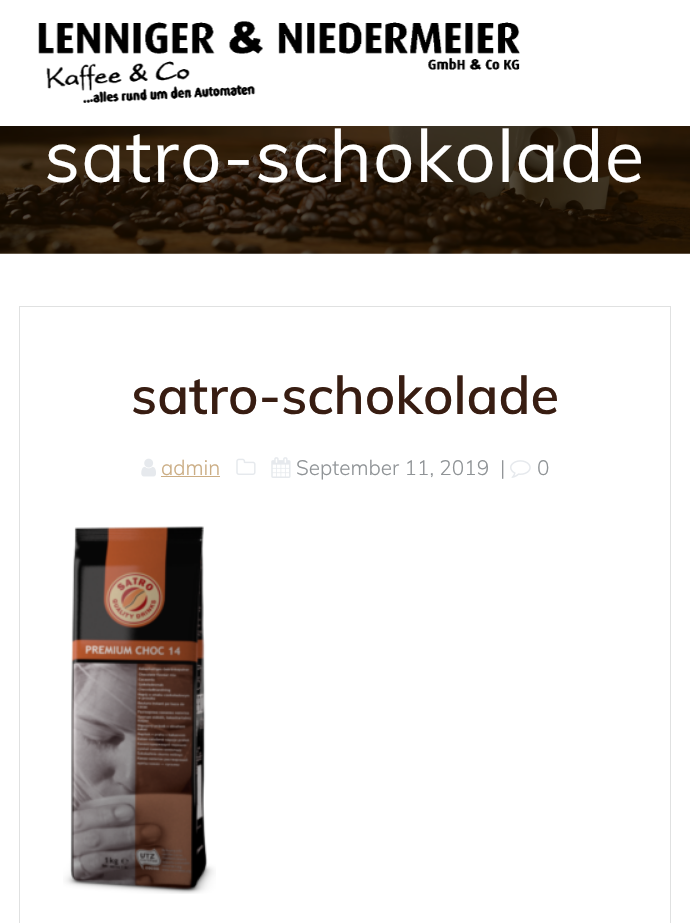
void draw(SkCanvas* canvas) {
  SkPaint paint;
  paint.setAntiAlias(true);
  auto face = [&](const char* family, int weight, float size, bool italic = false) {
    SkFontStyle style(weight, SkFontStyle::kNormal_Width,
      italic ? SkFontStyle::kItalic_Slant : SkFontStyle::kUpright_Slant);
    SkFont result(fontMgr->matchFamilyStyle(family, style), size);
    result.setSubpixel(true);
    return result;
  };
  auto writeSpaced = [&](const char* s, float x, float y, const SkFont& font, const SkPaint& ink, float letter, float word) {
    std::vector<SkGlyphID> glyphs(font.countText(s, strlen(s), SkTextEncoding::kUTF8));
    std::vector<float> xs(glyphs.size());
    font.textToGlyphs(s, strlen(s), SkTextEncoding::kUTF8, glyphs);
    font.getXPos(glyphs, xs, x);
    float extra = 0;
    for (size_t i = 0; i < glyphs.size(); i++) {
      xs[i] += extra;
      extra += letter + word * (glyphs[i] == font.unicharToGlyph(' '));
    }
    canvas->drawTextBlob(SkTextBlob::MakeFromPosHGlyphs(glyphs, xs, y, font), 0, 0, ink);
  };
  auto paste = [&](const char* path, float x, float y, float w, float h) {
    auto image = SkImages::DeferredFromEncodedData(SkData::MakeFromFileName(path));
    canvas->drawImageRect(image, SkRect::MakeXYWH(x, y, w, h), SkSamplingOptions());
  };
  canvas->clear(0xffffffff);
  paste("img/1.png", 38, 21, 482, 82);
  paste("img/2.png", 0, 126, 690, 128);
  paint.setStroke(true);
  paint.setStrokeWidth(1);
  paint.setColor(0xffe0e1e1);
  canvas->drawRect(SkRect::MakeXYWH(19.5f, 306.5f, 651, 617), paint);
  paste("img/3.png", 141, 458, 15, 19);
  paint.setStroke(false);
  paint.setColor(0xffcbad84);
  canvas->drawRect(SkRect::MakeXYWH(161, 476, 59, 1), paint);
  paste("img/4.png", 236, 458, 20, 17);
  paste("img/5.png", 271, 457, 20, 21);
  paste("img/6.png", 510, 460, 21, 18);
  paste("img/7.png", 63, 526, 153, 368);
  auto f0 = face("Mulish", 400, 72.75f);
  paint.setColor(0xffffffff);
  writeSpaced("satro-schokolade", 44, 182, f0, paint, 1.1f, 0);
  auto f1 = face("Mulish", 600, 52.5f);
  paint.setColor(0xff381d12);
  canvas->drawString("satro-schokolade", 131, 414, f1, paint);
  auto f2 = face("Mulish", 300, 20.75f);
  paint.setColor(0xffcbad84);
  canvas->drawString("admin", 161, 475, f2, paint);
  paint.setColor(0xff8f9396);
  {
    const struct { const char* s; float x, y; } items[] = {
      {"September 11, 2019", 296, 475},
      {"|", 500, 475},
      {"0", 537, 475},
    };
    for (auto [s, x, y] : items) {
      canvas->drawString(s, x, y, f2, paint);
    }
  }
}
